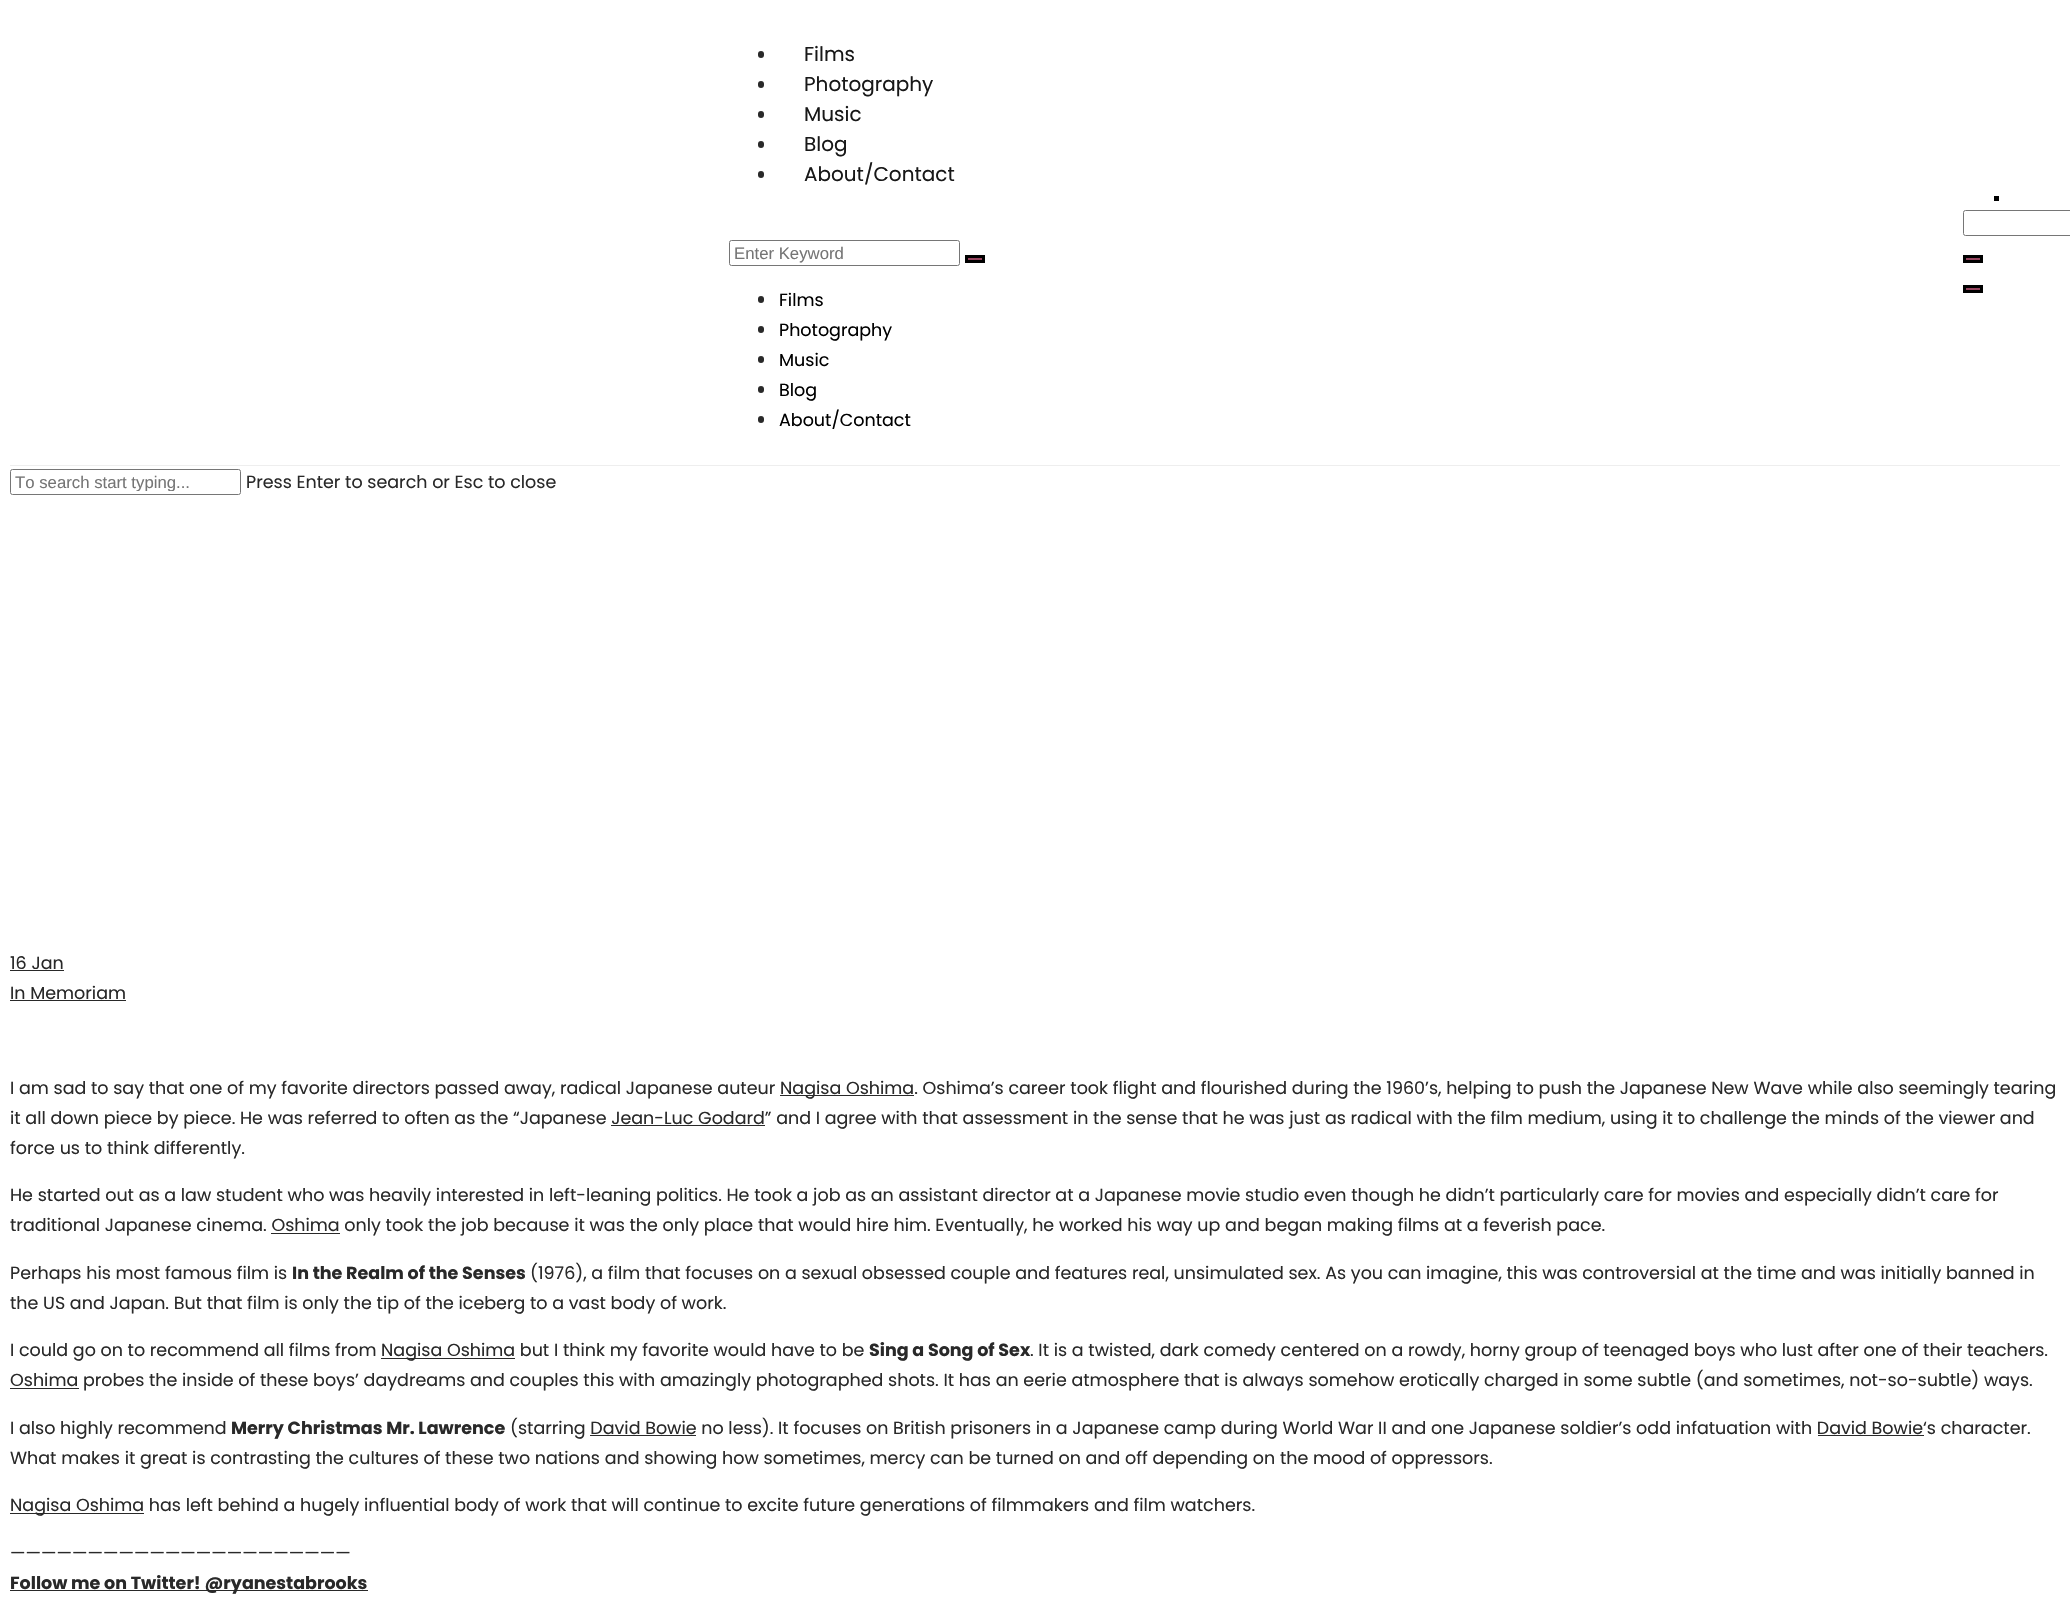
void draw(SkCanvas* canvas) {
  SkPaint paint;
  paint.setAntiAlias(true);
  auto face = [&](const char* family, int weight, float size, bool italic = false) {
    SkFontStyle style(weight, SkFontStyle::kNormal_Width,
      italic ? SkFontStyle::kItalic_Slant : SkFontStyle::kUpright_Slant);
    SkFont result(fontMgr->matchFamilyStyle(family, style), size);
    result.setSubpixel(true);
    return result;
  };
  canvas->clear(0xffffffff);
  paint.setColor(0xffeeeeee);
  canvas->drawRect(SkRect::MakeXYWH(10, 465, 2050, 1), paint);
  paint.setColor(0xff292929);
  canvas->drawRoundRect(SkRect::MakeXYWH(758, 51, 6, 7), 3, 3, paint);
  canvas->drawRoundRect(SkRect::MakeXYWH(758, 81, 6, 7), 3, 3, paint);
  canvas->drawRoundRect(SkRect::MakeXYWH(758, 111, 6, 7), 3, 3, paint);
  canvas->drawRoundRect(SkRect::MakeXYWH(758, 141, 6, 7), 3, 3, paint);
  canvas->drawRoundRect(SkRect::MakeXYWH(758, 171, 6, 7), 3, 3, paint);
  paint.setStroke(true);
  paint.setStrokeWidth(1);
  paint.setColor(0xff767676);
  canvas->drawRoundRect(SkRect::MakeXYWH(729.5f, 240.5f, 230, 25), 2, 2, paint);
  paint.setStroke(false);
  paint.setColor(0xff994560);
  canvas->drawRect(SkRect::MakeXYWH(966.5f, 256.5f, 17, 5), paint);
  paint.setStroke(true);
  paint.setStrokeWidth(3);
  paint.setColor(0xff000000);
  canvas->drawRect(SkRect::MakeXYWH(966.5f, 256.5f, 17, 5), paint);
  paint.setStroke(false);
  paint.setColor(0xff292929);
  canvas->drawRoundRect(SkRect::MakeXYWH(758, 296, 6, 7), 3, 3, paint);
  canvas->drawRoundRect(SkRect::MakeXYWH(758, 326, 6, 7), 3, 3, paint);
  canvas->drawRoundRect(SkRect::MakeXYWH(758, 356, 6, 7), 3, 3, paint);
  canvas->drawRoundRect(SkRect::MakeXYWH(758, 386, 6, 7), 3, 3, paint);
  canvas->drawRoundRect(SkRect::MakeXYWH(758, 416, 6, 7), 3, 3, paint);
  paint.setColor(0xff000000);
  canvas->drawRect(SkRect::MakeXYWH(1994, 196, 5, 5), paint);
  paint.setStroke(true);
  paint.setStrokeWidth(1);
  paint.setColor(0xff767676);
  canvas->drawRoundRect(SkRect::MakeXYWH(1963.5f, 210.5f, 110, 25), 2, 2, paint);
  paint.setStroke(false);
  paint.setColor(0xff994560);
  canvas->drawRect(SkRect::MakeXYWH(1964.5f, 256.5f, 17, 5), paint);
  paint.setStroke(true);
  paint.setStrokeWidth(3);
  paint.setColor(0xff000000);
  canvas->drawRect(SkRect::MakeXYWH(1964.5f, 256.5f, 17, 5), paint);
  paint.setStroke(false);
  paint.setColor(0xff994560);
  canvas->drawRect(SkRect::MakeXYWH(1964.5f, 286.5f, 17, 5), paint);
  paint.setStroke(true);
  paint.setColor(0xff000000);
  canvas->drawRect(SkRect::MakeXYWH(1964.5f, 286.5f, 17, 5), paint);
  paint.setStrokeWidth(1);
  paint.setColor(0xff767676);
  canvas->drawRoundRect(SkRect::MakeXYWH(10.5f, 469.5f, 230, 25), 2, 2, paint);
  paint.setStroke(false);
  {
    const struct { float x, y, w, h; SkColor color; } items[] = {
      {10, 970, 54, 1, 0xff292929},
      {10, 1000, 116, 1, 0xff292929},
      {780, 1095, 134, 1, 0xff292929},
      {611, 1125, 154, 1, 0xff292929},
      {271, 1233, 69, 1, 0xff292929},
      {381, 1358, 134, 1, 0xff292929},
      {10, 1388, 69, 1, 0xff292929},
      {590, 1435, 106, 1, 0xff292929},
      {1818, 1435, 106, 1, 0xff292929},
      {10, 1513, 134, 1, 0xff292929},
      {10, 1590, 358, 1, 0xff292929},
    };
    for (auto [x, y, w, h, color] : items) {
      paint.setColor(color);
      canvas->drawRect(SkRect::MakeXYWH(x, y, w, h), paint);
    }
  }
  auto f0 = face("Poppins", 400, 20);
  paint.setColor(0xff181818);
  {
    const struct { const char* s; float x, y; } items[] = {
      {"Films", 804, 61},
      {"Photography", 804, 91},
      {"Music", 804, 121},
      {"Blog", 804, 151},
      {"About/Contact", 804, 181},
    };
    for (auto [s, x, y] : items) {
      canvas->drawString(s, x, y, f0, paint);
    }
  }
  auto f1 = face("Liberation Sans", 400, 16.75f);
  paint.setColor(0xff757575);
  canvas->drawString("Enter Keyword", 734, 259, f1, paint);
  auto f2 = face("Poppins", 400, 17.5f);
  paint.setColor(0xff000000);
  {
    const struct { const char* s; float x, y; } items[] = {
      {"Films", 779, 306},
      {"Photography", 779, 336},
      {"Music", 779, 366},
      {"Blog", 779, 396},
      {"About/Contact", 779, 426},
    };
    for (auto [s, x, y] : items) {
      canvas->drawString(s, x, y, f2, paint);
    }
  }
  canvas->save();
  canvas->clipRect(SkRect::MakeXYWH(15, 473, 221, 18));
  paint.setColor(0xff757575);
  canvas->drawString("To search start typing...", 15, 488, f1, paint);
  canvas->restore();
  paint.setColor(0xff292929);
  {
    const struct { const char* s; float x, y; } items[] = {
      {"Press Enter to search or Esc to close", 246, 488},
      {"16 Jan", 10, 969},
      {"In Memoriam", 10, 999},
      {"I am sad to say that one of my favorite directors passed away, radical Japanese auteur", 10, 1094},
      {"Nagisa Oshima. Oshima’s career took flight and flourished during the 1960’s, helping to push the Japanese New Wave while also seemingly tearing", 780, 1094},
      {"it all down piece by piece. He was referred to often as the “Japanese Jean-Luc Godard” and I agree with that assessment in the sense that he was just as radical with the film medium, using it to challenge the minds of the viewer and", 10, 1124},
      {"force us to think differently.", 10, 1154},
      {"He started out as a law student who was heavily interested in left-leaning politics. He took a job as an assistant director at a Japanese movie studio even though he didn’t particularly care for movies and especially didn’t care for", 10, 1201},
      {"traditional Japanese cinema. Oshima only took the job because it was the only place that would hire him. Eventually, he worked his way up and began making films at a feverish pace.", 10, 1231},
      {"Perhaps his most famous film is", 10, 1279},
    };
    for (auto [s, x, y] : items) {
      canvas->drawString(s, x, y, f2, paint);
    }
  }
  auto f3 = face("Poppins", 700, 17.5f);
  canvas->drawString("In the Realm of the Senses", 292, 1279, f3, paint);
  {
    const struct { const char* s; float x, y; } items[] = {
      {"(1976), a film that focuses on a sexual obsessed couple and features real, unsimulated sex. As you can imagine, this was controversial at the time and was initially banned in", 530, 1279},
      {"the US and Japan. But that film is only the tip of the iceberg to a vast body of work.", 10, 1309},
      {"I could go on to recommend all films from", 10, 1356},
      {"Nagisa Oshima but I think my favorite would have to be", 381, 1356},
    };
    for (auto [s, x, y] : items) {
      canvas->drawString(s, x, y, f2, paint);
    }
  }
  canvas->drawString("Sing a Song of Sex", 869, 1356, f3, paint);
  {
    const struct { const char* s; float x, y; } items[] = {
      {". It is a twisted, dark comedy centered on a rowdy, horny group of teenaged boys who lust after one of their teachers.", 1030, 1356},
      {"Oshima probes the inside of these boys’ daydreams and couples this with amazingly photographed shots. It has an eerie atmosphere that is always somehow erotically charged in some subtle (and sometimes, not-so-subtle) ways.", 10, 1386},
      {"I also highly recommend", 10, 1434},
    };
    for (auto [s, x, y] : items) {
      canvas->drawString(s, x, y, f2, paint);
    }
  }
  canvas->drawString("Merry Christmas Mr. Lawrence", 231, 1434, f3, paint);
  {
    const struct { const char* s; float x, y; } items[] = {
      {"(starring David Bowie no less). It focuses on British prisoners in a Japanese camp during World War II and one Japanese soldier’s odd infatuation with David Bowie‘s character.", 510, 1434},
      {"What makes it great is contrasting the cultures of these two nations and showing how sometimes, mercy can be turned on and off depending on the mood of oppressors.", 10, 1464},
      {"Nagisa Oshima has left behind a hugely influential body of work that will continue to excite future generations of filmmakers and film watchers.", 10, 1511},
      {"——————————————————————", 10, 1559},
    };
    for (auto [s, x, y] : items) {
      canvas->drawString(s, x, y, f2, paint);
    }
  }
  canvas->drawString("Follow me on Twitter! @ryanestabrooks", 10, 1589, f3, paint);
}
